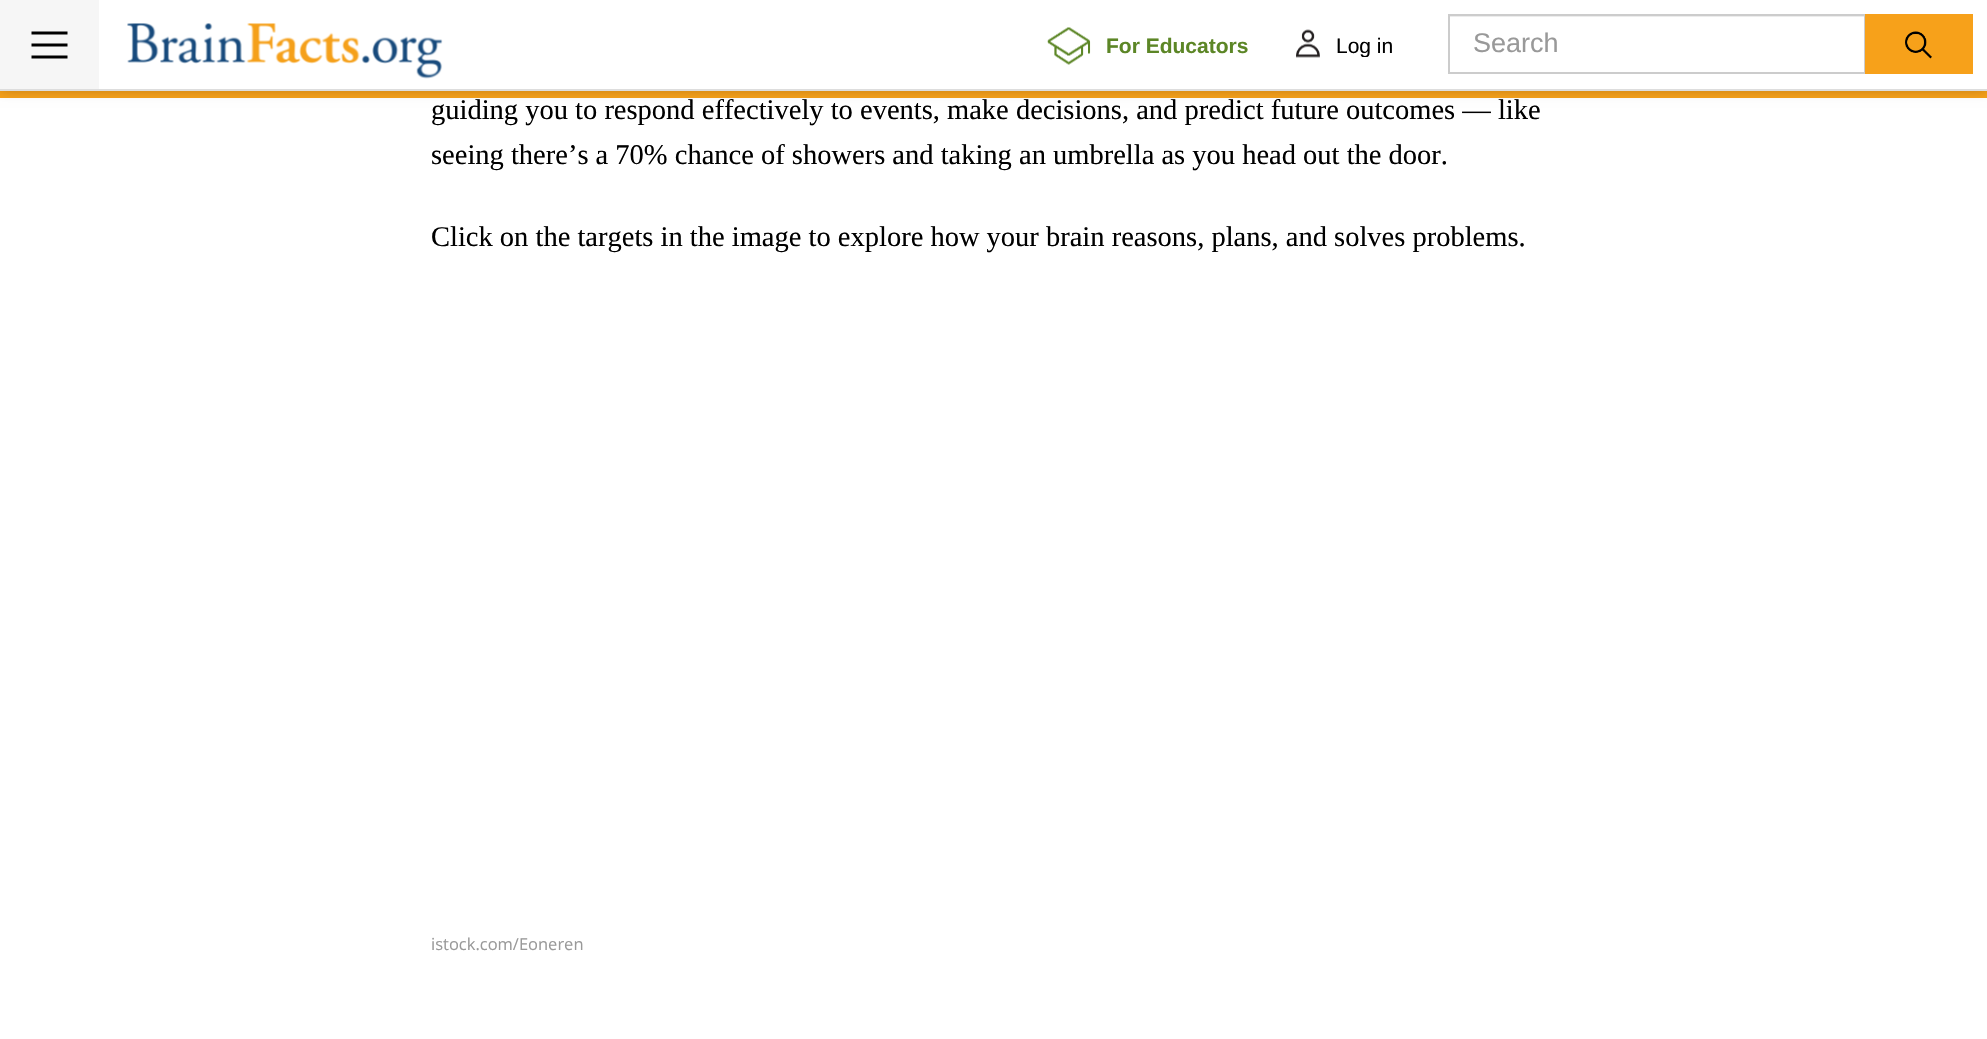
void draw(SkCanvas* canvas) {
  SkPaint paint;
  paint.setAntiAlias(true);
  auto face = [&](const char* family, int weight, float size, bool italic = false) {
    SkFontStyle style(weight, SkFontStyle::kNormal_Width,
      italic ? SkFontStyle::kItalic_Slant : SkFontStyle::kUpright_Slant);
    SkFont result(fontMgr->matchFamilyStyle(family, style), size);
    result.setSubpixel(true);
    return result;
  };
  auto paste = [&](const char* path, float x, float y, float w, float h) {
    auto image = SkImages::DeferredFromEncodedData(SkData::MakeFromFileName(path));
    canvas->drawImageRect(image, SkRect::MakeXYWH(x, y, w, h), SkSamplingOptions());
  };
  canvas->clear(0xffffffff);
  paint.setColor(0xfff7a11a);
  canvas->drawRect(SkRect::MakeXYWH(0, 91, 1987, 7), paint);
  paint.setColor(0x40000000);
  paint.setMaskFilter(SkMaskFilter::MakeBlur(kNormal_SkBlurStyle, 6));
  canvas->drawRect(SkRect::MakeXYWH(0, 0, 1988, 90), paint);
  paint.setMaskFilter(nullptr);
  {
    const struct { float x, y, w, h; SkColor color; } items[] = {
      {99, 0, 1888, 89, 0xffffffff},
      {0, 89, 1987, 2, 0xffdddddd},
      {0, 0, 99, 89, 0xfff6f6f6},
    };
    for (auto [x, y, w, h, color] : items) {
      paint.setColor(color);
      canvas->drawRect(SkRect::MakeXYWH(x, y, w, h), paint);
    }
  }
  paste("img/1.png", 31, 31, 37, 28);
  paste("img/2.png", 127, 23, 316, 56);
  paste("img/3.png", 1047, 27, 44, 38);
  paste("img/4.png", 1296, 29, 24, 29);
  paint.setColor(0xffececec);
  canvas->drawRect(SkRect::MakeXYWH(1449, 16, 416, 1), paint);
  paint.setStroke(true);
  paint.setStrokeWidth(2);
  paint.setColor(0xffcccccc);
  canvas->drawRect(SkRect::MakeXYWH(1449, 15, 416, 58), paint);
  paint.setStroke(false);
  paint.setColor(0xfff7a11a);
  canvas->drawRect(SkRect::MakeXYWH(1865, 14, 108, 60), paint);
  paste("img/5.png", 1905, 31, 27, 28);
  auto f0 = face("Liberation Sans", 700, 21);
  paint.setColor(0xff5c8626);
  canvas->drawString("For Educators", 1106, 53, f0, paint);
  canvas->save();
  canvas->clipRect(SkRect::MakeXYWH(1337, 30, 57, 27));
  auto f1 = face("Liberation Sans", 400, 21);
  paint.setColor(0xff000000);
  canvas->drawString("Log in", 1336, 53, f1, paint);
  canvas->restore();
  auto f2 = face("Liberation Sans", 400, 27);
  paint.setColor(0xff999999);
  canvas->drawString("Search", 1473, 52, f2, paint);
  auto f3 = face("Liberation Serif", 400, 28.5f);
  paint.setColor(0xff000000);
  {
    const struct { const char* s; float x, y; } items[] = {
      {"guiding you to respond effectively to events, make decisions, and predict future outcomes — like", 431, 119},
      {"seeing there’s a 70% chance of showers and taking an umbrella as you head out the door.", 431, 164},
      {"Click on the targets in the image to explore how your brain reasons, plans, and solves problems.", 431, 246},
    };
    for (auto [s, x, y] : items) {
      canvas->drawString(s, x, y, f3, paint);
    }
  }
  auto f4 = face("Open Sans", 400, 16.5f);
  paint.setColor(0xff999999);
  canvas->drawString("istock.com/Eoneren", 431, 950, f4, paint);
}
